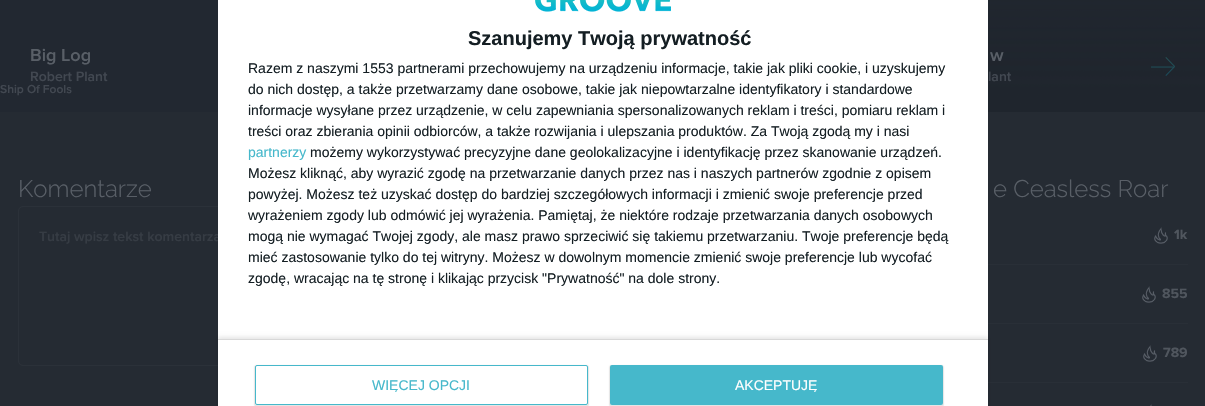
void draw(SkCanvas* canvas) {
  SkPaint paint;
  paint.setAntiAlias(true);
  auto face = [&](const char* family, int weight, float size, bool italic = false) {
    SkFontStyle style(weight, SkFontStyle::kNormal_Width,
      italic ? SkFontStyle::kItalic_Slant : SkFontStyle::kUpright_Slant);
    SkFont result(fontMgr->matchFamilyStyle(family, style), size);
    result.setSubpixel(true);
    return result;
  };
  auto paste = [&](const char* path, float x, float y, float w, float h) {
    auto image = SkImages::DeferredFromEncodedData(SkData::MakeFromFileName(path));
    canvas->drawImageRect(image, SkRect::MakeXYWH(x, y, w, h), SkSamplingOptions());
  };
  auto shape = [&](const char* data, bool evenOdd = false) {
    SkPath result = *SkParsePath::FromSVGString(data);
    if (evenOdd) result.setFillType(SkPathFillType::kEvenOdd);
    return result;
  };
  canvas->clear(0xff222831);
  paste("img/2.png", 988, 0, 217, 112);
  paste("img/3.png", 1151, 57, 24, 19);
  paint.setColor(0xff252b33);
  canvas->drawRect(SkRect::MakeXYWH(0, 112, 1205, 294), paint);
  paint.setStroke(true);
  paint.setStrokeWidth(1);
  paint.setColor(0xff2b3139);
  canvas->drawRoundRect(SkRect::MakeXYWH(18.5f, 206.5f, 494, 159), 4.5f, 4.5f, paint);
  paint.setStroke(false);
  paint.setColor(0xff292f37);
  canvas->drawRect(SkRect::MakeXYWH(988, 264, 200, 1), paint);
  paste("img/4.png", 1154, 227, 14, 17);
  canvas->drawRect(SkRect::MakeXYWH(988, 323, 200, 1), paint);
  paste("img/5.png", 1142, 286, 14, 17);
  canvas->drawRect(SkRect::MakeXYWH(988, 382, 200, 1), paint);
  paste("img/6.png", 1143, 345, 14, 17);
  paste("img/7.png", 1150, 404, 2, 2);
  auto f0 = face("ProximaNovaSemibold", 400, 18);
  paint.setColor(0xff595f67);
  canvas->drawString("Big Log", 30, 61, f0, paint);
  auto f1 = face("ProximaNovaSemibold", 400, 14);
  paint.setColor(0xff424851);
  canvas->drawString("Robert Plant", 30, 81, f1, paint);
  paint.setColor(0xff595f67);
  canvas->drawString("w", 990, 61, f0, paint);
  paint.setColor(0xff424851);
  canvas->drawString("lant", 988, 81, f1, paint);
  auto f2 = face("ProximaNovaSemibold", 400, 12);
  canvas->drawString("Ship Of Fools", 0, 93, f2, paint);
  auto f3 = face("Raleway", 300, 24);
  paint.setColor(0xff595f67);
  canvas->drawString("Komentarze", 18, 197, f3, paint);
  paint.setColor(0xff363c44);
  canvas->drawString("Tutaj wpisz tekst komentarza", 39, 241, f1, paint);
  paint.setColor(0xffffffff);
  canvas->drawRect(SkRect::MakeXYWH(218, 0, 770, 406), paint);
  paint.setColor(0x1a000000);
  paint.setMaskFilter(SkMaskFilter::MakeBlur(kNormal_SkBlurStyle, 0.5f));
  canvas->drawRoundRect(SkRect::MakeXYWH(609, 365, 335, 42), 3, 3, paint);
  paint.setMaskFilter(nullptr);
  canvas->save();
  canvas->clipPath(shape("M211 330H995V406H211ZM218 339H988V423H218Z", true), true);
  paint.setMaskFilter(SkMaskFilter::MakeBlur(kNormal_SkBlurStyle, 2));
  canvas->drawRect(SkRect::MakeXYWH(218, 337, 770, 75), paint);
  paint.setMaskFilter(nullptr);
  canvas->restore();
  paint.setColor(0xff46b8cb);
  canvas->drawRoundRect(SkRect::MakeXYWH(610, 365, 333, 40), 2, 2, paint);
  canvas->save();
  canvas->clipRect(SkRect::MakeXYWH(735, 378, 83, 14));
  auto f4 = face("Liberation Sans", 400, 14);
  paint.setColor(0xffffffff);
  canvas->drawString("AKCEPTUJĘ", 735, 390, f4, paint);
  canvas->restore();
  paint.setColor(0x1a000000);
  paint.setMaskFilter(SkMaskFilter::MakeBlur(kNormal_SkBlurStyle, 0.5f));
  canvas->drawRoundRect(SkRect::MakeXYWH(254, 365, 335, 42), 3, 3, paint);
  paint.setMaskFilter(nullptr);
  paint.setColor(0xffffffff);
  canvas->drawRoundRect(SkRect::MakeXYWH(255.5f, 365.5f, 332, 39), 1.5f, 1.5f, paint);
  paint.setStroke(true);
  paint.setColor(0xff46b8cb);
  canvas->drawRoundRect(SkRect::MakeXYWH(255.5f, 365.5f, 332, 39), 1.5f, 1.5f, paint);
  canvas->save();
  canvas->clipRect(SkRect::MakeXYWH(372, 378, 98, 14));
  paint.setStroke(false);
  canvas->drawString("WIĘCEJ OPCJI", 372, 390, f4, paint);
  canvas->restore();
  paint.setColor(0xffd8d8d8);
  canvas->drawRect(SkRect::MakeXYWH(218, 339, 770, 1), paint);
  paint.setColor(0xff46b8cb);
  canvas->drawString("partnerzy", 248, 157, f4, paint);
  paint.setColor(0xff141e23);
  {
    const struct { const char* s; float x, y; } items[] = {
      {"zgodę, wracając na tę stronę i klikając przycisk \"Prywatność\" na dole strony.", 248, 283},
      {"mieć zastosowanie tylko do tej witryny. Możesz w dowolnym momencie zmienić swoje preferencje lub wycofać", 248, 262},
      {"mogą nie wymagać Twojej zgody, ale masz prawo sprzeciwić się takiemu przetwarzaniu. Twoje preferencje będą", 248, 241},
      {"wyrażeniem zgody lub odmówić jej wyrażenia. Pamiętaj, że niektóre rodzaje przetwarzania danych osobowych", 248, 220},
      {"powyżej. Możesz też uzyskać dostęp do bardziej szczegółowych informacji i zmienić swoje preferencje przed", 248, 199},
      {"Możesz kliknąć, aby wyrazić zgodę na przetwarzanie danych przez nas i naszych partnerów zgodnie z opisem", 248, 178},
      {"możemy wykorzystywać precyzyjne dane geolokalizacyjne i identyfikację przez skanowanie urządzeń.", 310, 157},
      {"treści oraz zbierania opinii odbiorców, a także rozwijania i ulepszania produktów. Za Twoją zgodą my i nasi", 248, 136},
      {"informacje wysyłane przez urządzenie, w celu zapewniania spersonalizowanych reklam i treści, pomiaru reklam i", 248, 115},
      {"do nich dostęp, a także przetwarzamy dane osobowe, takie jak niepowtarzalne identyfikatory i standardowe", 248, 94},
      {"Razem z naszymi 1553 partnerami przechowujemy na urządzeniu informacje, takie jak pliki cookie, i uzyskujemy", 248, 73},
    };
    for (auto [s, x, y] : items) {
      canvas->drawString(s, x, y, f4, paint);
    }
  }
  paste("img/1.png", 535, 0, 136, 12);
  auto f5 = face("Liberation Sans", 700, 20);
  canvas->drawString("Szanujemy Twoją prywatność", 468, 45, f5, paint);
  paint.setColor(0xff595f67);
  canvas->drawString("e Ceasless Roar", 993, 197, f3, paint);
  auto f6 = face("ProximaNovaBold", 400, 14);
  paint.setColor(0xff50565e);
  {
    const struct { const char* s; float x, y; } items[] = {
      {"1k", 1174, 239},
      {"855", 1162, 298},
      {"789", 1163, 357},
    };
    for (auto [s, x, y] : items) {
      canvas->drawString(s, x, y, f6, paint);
    }
  }
}
